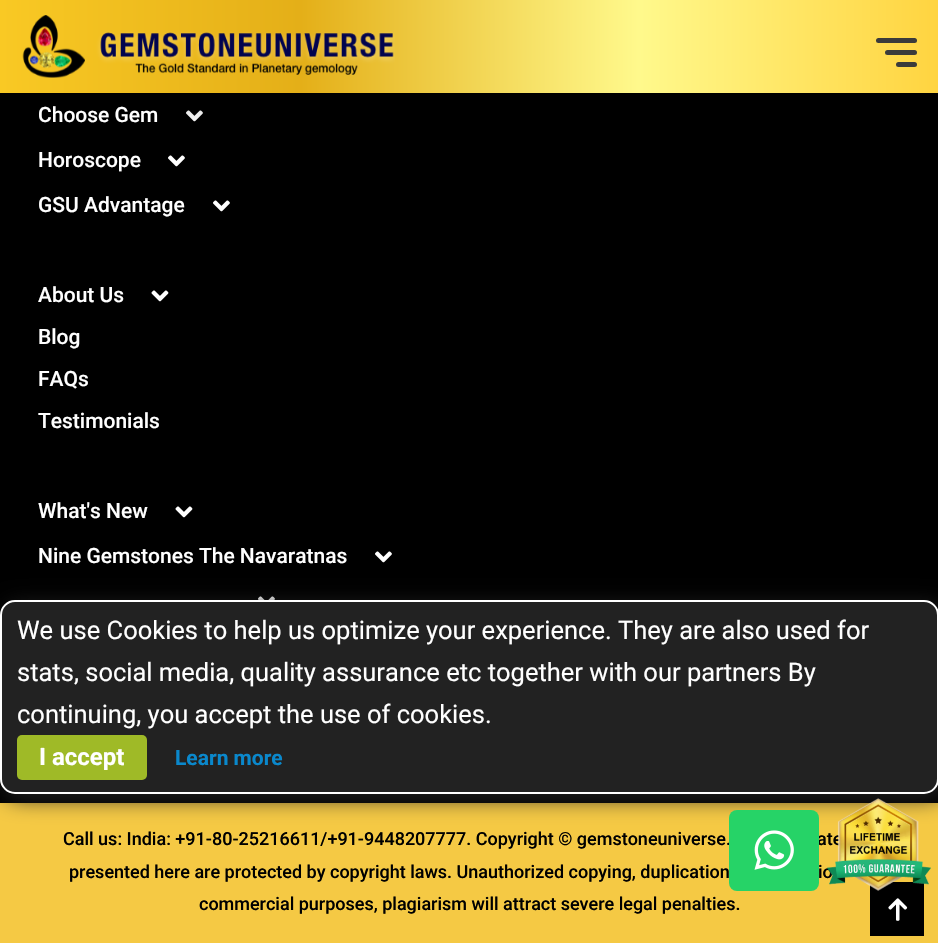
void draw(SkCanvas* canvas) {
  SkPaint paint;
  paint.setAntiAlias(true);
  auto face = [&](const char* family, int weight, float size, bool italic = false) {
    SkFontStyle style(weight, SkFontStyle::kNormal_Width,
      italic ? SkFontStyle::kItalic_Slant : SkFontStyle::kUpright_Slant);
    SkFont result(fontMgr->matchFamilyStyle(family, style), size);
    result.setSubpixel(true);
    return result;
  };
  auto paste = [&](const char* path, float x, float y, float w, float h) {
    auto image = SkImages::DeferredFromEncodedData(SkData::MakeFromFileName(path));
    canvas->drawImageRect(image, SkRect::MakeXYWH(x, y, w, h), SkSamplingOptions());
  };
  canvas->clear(0xff000000);
  paste("img/3.png", 186, 110, 17, 12);
  paint.setColor(0x33000000);
  paint.setMaskFilter(SkMaskFilter::MakeBlur(kNormal_SkBlurStyle, 15));
  canvas->drawRect(SkRect::MakeXYWH(0, 15, 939, 93), paint);
  paint.setMaskFilter(nullptr);
  {
    const SkColor colors[] = {0xffe09d18, 0xfff9c924, 0xffe4af18, 0xfffff98c, 0xffffd440};
    const float stops[] = {0, 0, 0.32f, 0.68f, 1};
    const SkPoint ends[] = {{0, 47}, {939, 46}};
    paint.setShader(SkGradientShader::MakeLinear(ends, colors, stops, 5, SkTileMode::kClamp));
    paint.setAlpha(255);
  }
  canvas->drawRect(SkRect::MakeXYWH(0, 0, 938, 93), paint);
  paste("img/1.png", 22, 15, 373, 63);
  paint.setShader(nullptr);
  paint.setColor(0xff3b3b3b);
  canvas->drawRoundRect(SkRect::MakeXYWH(876, 38, 41, 5), 2.5f, 2.5f, paint);
  canvas->drawRoundRect(SkRect::MakeXYWH(885, 50, 32, 5), 2.5f, 2.5f, paint);
  canvas->drawRoundRect(SkRect::MakeXYWH(896, 62, 21, 5), 2.5f, 2.5f, paint);
  paste("img/3.png", 168, 155, 17, 12);
  paste("img/3.png", 213, 200, 17, 12);
  paste("img/4.png", 151, 290, 18, 12);
  paste("img/4.png", 175, 506, 18, 12);
  paste("img/3.png", 375, 551, 17, 12);
  paste("img/5.png", 258, 596, 17, 4);
  paint.setColor(0xfff5c944);
  canvas->drawRect(SkRect::MakeXYWH(0, 803, 938, 140), paint);
  paint.setColor(0xff222222);
  paint.setMaskFilter(SkMaskFilter::MakeBlur(kNormal_SkBlurStyle, 11));
  canvas->drawRoundRect(SkRect::MakeXYWH(5, 605, 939, 193), 15, 15, paint);
  paint.setMaskFilter(nullptr);
  canvas->drawRoundRect(SkRect::MakeXYWH(1, 601, 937, 192), 14, 14, paint);
  paint.setStroke(true);
  paint.setStrokeWidth(2);
  paint.setColor(0xffffffff);
  canvas->drawRoundRect(SkRect::MakeXYWH(1, 601, 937, 192), 14, 14, paint);
  paint.setStroke(false);
  paint.setColor(0xff9fba27);
  canvas->drawRoundRect(SkRect::MakeXYWH(17, 735, 130, 45), 5, 5, paint);
  paint.setColor(0xff000000);
  canvas->drawRect(SkRect::MakeXYWH(870, 882, 54, 54), paint);
  paste("img/7.png", 888, 898, 20, 23);
  auto f0 = face("Roboto", 500, 21);
  paint.setColor(0xffffffff);
  {
    const struct { const char* s; float x, y; } items[] = {
      {"Choose Gem", 38, 122},
      {"Horoscope", 38, 167},
      {"GSU Advantage", 38, 212},
      {"About Us", 38, 302},
      {"Blog", 38, 344},
      {"FAQs", 38, 386},
      {"Testimonials", 38, 428},
      {"What's New", 38, 518},
      {"Nine Gemstones The Navaratnas", 38, 563},
    };
    for (auto [s, x, y] : items) {
      canvas->drawString(s, x, y, f0, paint);
    }
  }
  auto f1 = face("Roboto", 500, 18);
  paint.setColor(0xff000000);
  {
    const struct { const char* s; float x, y; } items[] = {
      {"Call us: India: +91-80-25216611/+91-9448207777. Copyright © gemstoneuniverse.", 63, 845},
      {"ate", 817, 845},
      {"presented here are protected by copyright laws. Unauthorized copying, duplication", 69, 878},
      {"io", 818, 878},
    };
    for (auto [s, x, y] : items) {
      canvas->drawString(s, x, y, f1, paint);
    }
  }
  paste("img/2.png", 827, 798, 104, 93);
  canvas->drawString("commercial purposes, plagiarism will attract severe legal penalties.", 199, 910, f1, paint);
  paint.setColor(0xff26d367);
  canvas->drawRoundRect(SkRect::MakeXYWH(729, 810, 90, 81), 8, 8, paint);
  paste("img/6.png", 754, 830, 40, 40);
  auto f2 = face("Roboto", 400, 25.5f);
  paint.setColor(0xffffffff);
  {
    const struct { const char* s; float x, y; } items[] = {
      {"We use Cookies to help us optimize your experience. They are also used for", 17, 639},
      {"stats, social media, quality assurance etc together with our partners By", 17, 681},
      {"continuing, you accept the use of cookies.", 17, 723},
    };
    for (auto [s, x, y] : items) {
      canvas->drawString(s, x, y, f2, paint);
    }
  }
  auto f3 = face("Roboto", 700, 24);
  canvas->drawString("I accept", 39, 765, f3, paint);
  auto f4 = face("Roboto", 700, 21);
  paint.setColor(0xff0a88cc);
  canvas->drawString("Learn more", 175, 765, f4, paint);
}
